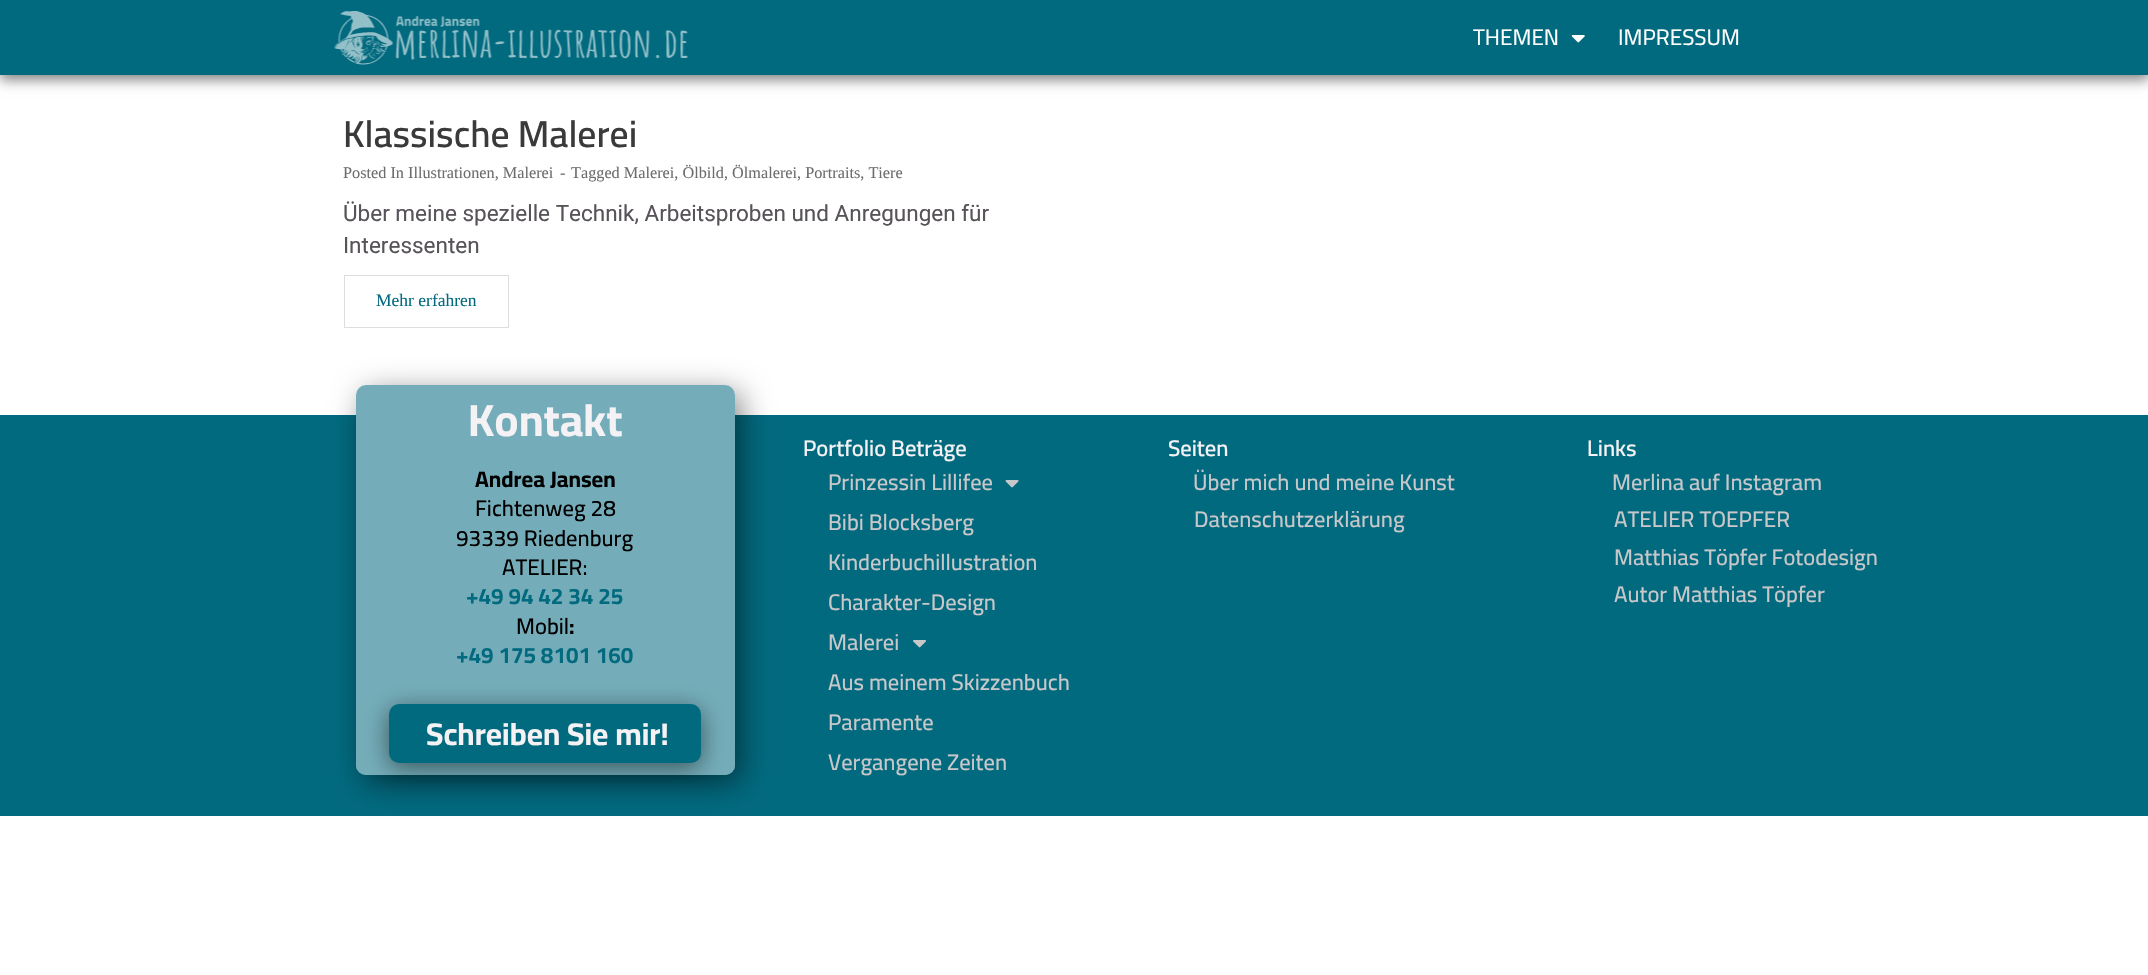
void draw(SkCanvas* canvas) {
  SkPaint paint;
  paint.setAntiAlias(true);
  auto face = [&](const char* family, int weight, float size, bool italic = false) {
    SkFontStyle style(weight, SkFontStyle::kNormal_Width,
      italic ? SkFontStyle::kItalic_Slant : SkFontStyle::kUpright_Slant);
    SkFont result(fontMgr->matchFamilyStyle(family, style), size);
    result.setSubpixel(true);
    return result;
  };
  auto paste = [&](const char* path, float x, float y, float w, float h) {
    auto image = SkImages::DeferredFromEncodedData(SkData::MakeFromFileName(path));
    canvas->drawImageRect(image, SkRect::MakeXYWH(x, y, w, h), SkSamplingOptions());
  };
  canvas->clear(0xffffffff);
  paint.setColor(0x7a000000);
  paint.setMaskFilter(SkMaskFilter::MakeBlur(kNormal_SkBlurStyle, 6));
  canvas->drawRect(SkRect::MakeXYWH(0, 5, 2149, 75), paint);
  paint.setMaskFilter(nullptr);
  paint.setColor(0xff026a7f);
  canvas->drawRect(SkRect::MakeXYWH(0, 0, 2148, 75), paint);
  paste("img/1.png", 334, 11, 354, 54);
  paste("img/2.png", 1571, 35, 14, 8);
  paint.setStroke(true);
  paint.setStrokeWidth(1);
  paint.setColor(0xffdddddd);
  canvas->drawRect(SkRect::MakeXYWH(344.5f, 275.5f, 164, 52), paint);
  paint.setStroke(false);
  paint.setColor(0xff026a7f);
  canvas->drawRect(SkRect::MakeXYWH(0, 415, 2148, 400), paint);
  paint.setColor(0x80000000);
  paint.setMaskFilter(SkMaskFilter::MakeBlur(kNormal_SkBlurStyle, 15.5f));
  canvas->drawRoundRect(SkRect::MakeXYWH(363, 393, 378, 390), 10, 10, paint);
  paint.setMaskFilter(nullptr);
  paint.setColor(0xffffffff);
  canvas->drawRoundRect(SkRect::MakeXYWH(356, 385, 379, 390), 10, 10, paint);
  paint.setColor(0x8c026a7f);
  canvas->drawRoundRect(SkRect::MakeXYWH(356, 385, 379, 390), 10, 10, paint);
  paint.setColor(0x80000000);
  paint.setMaskFilter(SkMaskFilter::MakeBlur(kNormal_SkBlurStyle, 12.5f));
  canvas->drawRoundRect(SkRect::MakeXYWH(389, 709, 312, 59), 10, 10, paint);
  paint.setMaskFilter(nullptr);
  paint.setColor(0xff026a7f);
  canvas->drawRoundRect(SkRect::MakeXYWH(389, 704, 312, 59), 10, 10, paint);
  paste("img/3.png", 1005, 480, 14, 8);
  paste("img/4.png", 913, 640, 13, 8);
  canvas->drawRect(SkRect::MakeXYWH(0, 815, 2148, 1), paint);
  auto f0 = face("Cairo", 400, 22.5f);
  paint.setColor(0xffffffff);
  canvas->drawString("THEMEN", 1473, 45, f0, paint);
  canvas->drawString("IMPRESSUM", 1618, 45, f0, paint);
  auto f1 = face("Cairo", 600, 37.5f);
  paint.setColor(0xff3a3a3a);
  canvas->drawString("Klassische Malerei", 343, 147, f1, paint);
  auto f2 = face("Liberation Serif", 400, 16.25f);
  paint.setColor(0xff6d6d6d);
  {
    const struct { const char* s; float x, y; } items[] = {
      {"Posted In Illustrationen, Malerei", 343, 178},
      {"-", 560, 178},
      {"Tagged Malerei, Ölbild, Ölmalerei, Portraits, Tiere", 571, 178},
    };
    for (auto [s, x, y] : items) {
      canvas->drawString(s, x, y, f2, paint);
    }
  }
  auto f3 = face("Roboto", 400, 22.5f);
  paint.setColor(0xff575359);
  canvas->drawString("Über meine spezielle Technik, Arbeitsproben und Anregungen für", 343, 221, f3, paint);
  canvas->drawString("Interessenten", 343, 253, f3, paint);
  auto f4 = face("Liberation Serif", 400, 17.5f);
  paint.setColor(0xff026a7f);
  canvas->drawString("Mehr erfahren", 376, 306, f4, paint);
  auto f5 = face("Cairo", 700, 45);
  paint.setColor(0xfff4f2f4);
  canvas->drawString("Kontakt", 468, 436, f5, paint);
  auto f6 = face("Cairo", 700, 22.5f);
  paint.setColor(0xff000000);
  canvas->drawString("Andrea Jansen", 475, 487, f6, paint);
  auto f7 = face("Cairo", 500, 22.5f);
  {
    const struct { const char* s; float x, y; } items[] = {
      {"Fichtenweg 28", 475, 516},
      {"93339 Riedenburg", 456, 546},
      {"ATELIER:", 502, 575},
    };
    for (auto [s, x, y] : items) {
      canvas->drawString(s, x, y, f7, paint);
    }
  }
  paint.setColor(0xff026a7f);
  canvas->drawString("+49 94 42 34 25", 466, 604, f6, paint);
  paint.setColor(0xff000000);
  canvas->drawString("Mobil", 516, 634, f7, paint);
  canvas->drawString(":", 569, 634, f6, paint);
  paint.setColor(0xff026a7f);
  canvas->drawString("+49 175 8101 160", 456, 663, f6, paint);
  auto f8 = face("Cairo", 700, 31.25f);
  paint.setColor(0xfff4f2f4);
  canvas->drawString("Schreiben Sie mir!", 426, 745, f8, paint);
  auto f9 = face("Cairo", 600, 22.5f);
  canvas->drawString("Portfolio Beträge", 803, 456, f9, paint);
  paint.setColor(0xffc8c7c9);
  {
    const struct { const char* s; float x, y; } items[] = {
      {"Prinzessin Lillifee", 828, 490},
      {"Bibi Blocksberg", 828, 530},
      {"Kinderbuchillustration", 828, 570},
      {"Charakter-Design", 828, 610},
      {"Malerei", 828, 650},
      {"Aus meinem Skizzenbuch", 828, 690},
      {"Paramente", 828, 730},
      {"Vergangene Zeiten", 828, 770},
    };
    for (auto [s, x, y] : items) {
      canvas->drawString(s, x, y, f7, paint);
    }
  }
  paint.setColor(0xfff4f2f4);
  canvas->drawString("Seiten", 1168, 456, f9, paint);
  paint.setColor(0xffc8c7c9);
  canvas->drawString("Über mich und meine Kunst", 1193, 490, f7, paint);
  canvas->drawString("Datenschutzerklärung", 1194, 527, f7, paint);
  paint.setColor(0xfff4f2f4);
  canvas->drawString("Links", 1587, 456, f9, paint);
  paint.setColor(0xffc8c7c9);
  {
    const struct { const char* s; float x, y; } items[] = {
      {"Merlina auf Instagram", 1612, 490},
      {"ATELIER TOEPFER", 1614, 527},
      {"Matthias Töpfer Fotodesign", 1614, 565},
      {"Autor Matthias Töpfer", 1614, 602},
    };
    for (auto [s, x, y] : items) {
      canvas->drawString(s, x, y, f7, paint);
    }
  }
}
